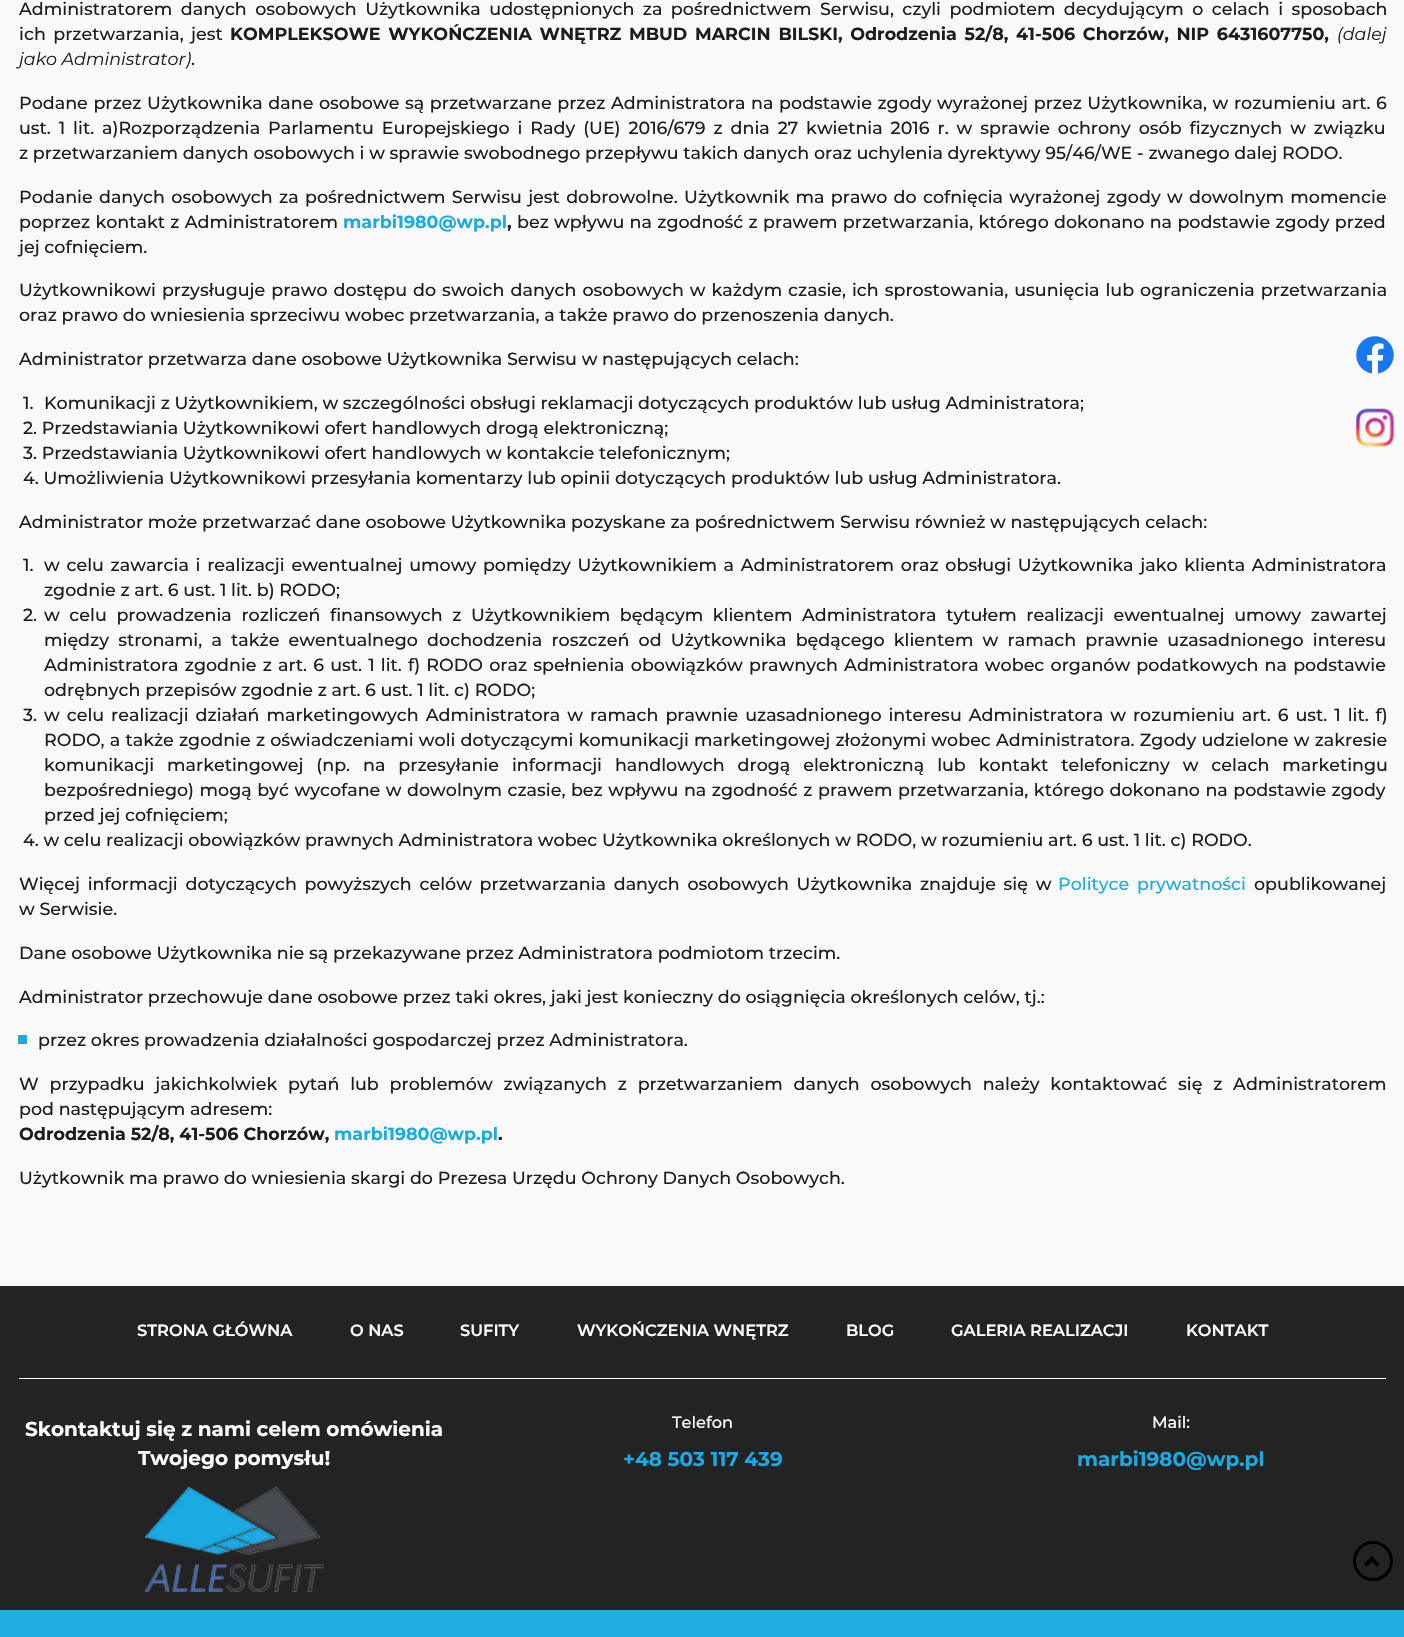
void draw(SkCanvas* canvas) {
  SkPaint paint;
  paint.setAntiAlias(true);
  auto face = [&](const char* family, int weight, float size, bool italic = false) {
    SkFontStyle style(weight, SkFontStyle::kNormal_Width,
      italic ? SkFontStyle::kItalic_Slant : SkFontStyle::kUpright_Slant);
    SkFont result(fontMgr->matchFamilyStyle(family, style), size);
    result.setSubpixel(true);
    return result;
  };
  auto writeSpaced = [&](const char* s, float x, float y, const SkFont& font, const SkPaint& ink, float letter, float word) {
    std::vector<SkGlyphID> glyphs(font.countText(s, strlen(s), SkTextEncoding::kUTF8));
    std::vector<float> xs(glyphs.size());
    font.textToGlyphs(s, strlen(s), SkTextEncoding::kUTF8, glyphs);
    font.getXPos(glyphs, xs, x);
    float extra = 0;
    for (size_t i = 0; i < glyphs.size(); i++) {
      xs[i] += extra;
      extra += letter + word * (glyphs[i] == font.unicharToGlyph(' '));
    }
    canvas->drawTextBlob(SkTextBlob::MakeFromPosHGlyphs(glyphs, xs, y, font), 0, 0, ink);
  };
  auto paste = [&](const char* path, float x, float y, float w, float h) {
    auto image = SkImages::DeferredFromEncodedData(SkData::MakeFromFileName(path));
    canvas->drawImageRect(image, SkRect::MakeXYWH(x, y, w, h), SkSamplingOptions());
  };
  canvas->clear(0xfff9f9f9);
  paint.setColor(0xff1baae2);
  canvas->drawRect(SkRect::MakeXYWH(18, 1035, 9, 9), paint);
  paste("img/1.png", 1356, 336, 38, 38);
  paste("img/2.png", 1356, 408, 38, 39);
  paint.setColor(0xff232323);
  canvas->drawRect(SkRect::MakeXYWH(0, 1286, 1404, 324), paint);
  paint.setColor(0xffffffff);
  canvas->drawRect(SkRect::MakeXYWH(19, 1378, 1367, 1), paint);
  paste("img/3.png", 145, 1487, 179, 105);
  paint.setStroke(true);
  paint.setStrokeWidth(3);
  paint.setColor(0xff000000);
  canvas->drawCircle(1373, 1561, 18.5f, paint);
  paste("img/4.png", 1364, 1556, 16, 11);
  paint.setStroke(false);
  paint.setColor(0xff22aee2);
  canvas->drawRect(SkRect::MakeXYWH(0, 1610, 1404, 27), paint);
  auto f0 = face("Montserrat", 500, 17.5f);
  paint.setColor(0xff1d1d1d);
  writeSpaced("Administratorem danych osobowych Użytkownika udostępnionych za pośrednictwem Serwisu, czyli podmiotem decydującym o celach i sposobach", 19, 15, f0, paint, 0, 3.75f);
  writeSpaced("ich przetwarzania, jest", 19, 40, f0, paint, 0, 2.75f);
  auto f1 = face("Montserrat", 700, 17.5f);
  writeSpaced("KOMPLEKSOWE WYKOŃCZENIA WNĘTRZ MBUD MARCIN BILSKI, Odrodzenia 52/8, 41-506 Chorzów, NIP 6431607750,", 230, 40, f1, paint, 0, 2.75f);
  auto f2 = face("Montserrat", 400, 17.5f, true);
  canvas->drawString("(dalej", 1337, 40, f2, paint);
  canvas->drawString("jako Administrator)", 19, 65, f2, paint);
  canvas->drawString(".", 191, 65, f0, paint);
  writeSpaced("Podane przez Użytkownika dane osobowe są przetwarzane przez Administratora na podstawie zgody wyrażonej przez Użytkownika, w rozumieniu art. 6", 19, 109, f0, paint, 0, 0.9f);
  writeSpaced("ust. 1 lit. a)Rozporządzenia Parlamentu Europejskiego i Rady (UE) 2016/679 z dnia 27 kwietnia 2016 r. w sprawie ochrony osób fizycznych w związku", 19, 134, f0, paint, 0, 3.2f);
  canvas->drawString("z przetwarzaniem danych osobowych i w sprawie swobodnego przepływu takich danych oraz uchylenia dyrektywy 95/46/WE - zwanego dalej RODO.", 19, 159, f0, paint);
  writeSpaced("Podanie danych osobowych za pośrednictwem Serwisu jest dobrowolne. Użytkownik ma prawo do cofnięcia wyrażonej zgody w dowolnym momencie", 19, 203, f0, paint, 0, 1.6f);
  writeSpaced("poprzez kontakt z Administratorem", 19, 228, f0, paint, 0, 0.6f);
  paint.setColor(0xff1baae2);
  canvas->drawString("marbi1980@wp.pl", 343, 228, f1, paint);
  paint.setColor(0xff1d1d1d);
  canvas->drawString(",", 507, 228, f1, paint);
  writeSpaced("bez wpływu na zgodność z prawem przetwarzania, którego dokonano na podstawie zgody przed", 517, 228, f0, paint, 0, 0.6f);
  canvas->drawString("jej cofnięciem.", 19, 253, f0, paint);
  writeSpaced("Użytkownikowi przysługuje prawo dostępu do swoich danych osobowych w każdym czasie, ich sprostowania, usunięcia lub ograniczenia przetwarzania", 19, 296, f0, paint, 0, 1.25f);
  {
    const struct { const char* s; float x, y; } items[] = {
      {"oraz prawo do wniesienia sprzeciwu wobec przetwarzania, a także prawo do przenoszenia danych.", 19, 321},
      {"Administrator przetwarza dane osobowe Użytkownika Serwisu w następujących celach:", 19, 365},
      {"1.", 23, 409},
      {"Komunikacji z Użytkownikiem, w szczególności obsługi reklamacji dotyczących produktów lub usług Administratora;", 44, 409},
      {"2. Przedstawiania Użytkownikowi ofert handlowych drogą elektroniczną;", 23, 434},
      {"3. Przedstawiania Użytkownikowi ofert handlowych w kontakcie telefonicznym;", 23, 459},
      {"4. Umożliwienia Użytkownikowi przesyłania komentarzy lub opinii dotyczących produktów lub usług Administratora.", 23, 484},
      {"Administrator może przetwarzać dane osobowe Użytkownika pozyskane za pośrednictwem Serwisu również w następujących celach:", 19, 528},
      {"1.", 23, 571},
    };
    for (auto [s, x, y] : items) {
      canvas->drawString(s, x, y, f0, paint);
    }
  }
  writeSpaced("w celu zawarcia i realizacji ewentualnej umowy pomiędzy Użytkownikiem a Administratorem oraz obsługi Użytkownika jako klienta Administratora", 44, 571, f0, paint, 0, 2);
  canvas->drawString("zgodnie z art. 6 ust. 1 lit. b) RODO;", 44, 596, f0, paint);
  canvas->drawString("2.", 23, 621, f0, paint);
  writeSpaced("w celu prowadzenia rozliczeń finansowych z Użytkownikiem będącym klientem Administratora tytułem realizacji ewentualnej umowy zawartej", 44, 621, f0, paint, 0, 4.9f);
  writeSpaced("między stronami, a także ewentualnego dochodzenia roszczeń od Użytkownika będącego klientem w ramach prawnie uzasadnionego interesu", 44, 646, f0, paint, 0, 4.5f);
  writeSpaced("Administratora zgodnie z art. 6 ust. 1 lit. f) RODO oraz spełnienia obowiązków prawnych Administratora wobec organów podatkowych na podstawie", 44, 671, f0, paint, 0, 1.5f);
  canvas->drawString("odrębnych przepisów zgodnie z art. 6 ust. 1 lit. c) RODO;", 44, 696, f0, paint);
  canvas->drawString("3.", 23, 721, f0, paint);
  writeSpaced("w celu realizacji działań marketingowych Administratora w ramach prawnie uzasadnionego interesu Administratora w rozumieniu art. 6 ust. 1 lit. f)", 44, 721, f0, paint, 0, 2.25f);
  writeSpaced("RODO, a także zgodnie z oświadczeniami woli dotyczącymi komunikacji marketingowej złożonymi wobec Administratora. Zgody udzielone w zakresie", 44, 746, f0, paint, 0, 0.5f);
  writeSpaced("komunikacji marketingowej (np. na przesyłanie informacji handlowych drogą elektroniczną lub kontakt telefoniczny w celach marketingu", 44, 771, f0, paint, 0, 8.25f);
  writeSpaced("bezpośredniego) mogą być wycofane w dowolnym czasie, bez wpływu na zgodność z prawem przetwarzania, którego dokonano na podstawie zgody", 44, 796, f0, paint, 0, 0.8f);
  canvas->drawString("przed jej cofnięciem;", 44, 821, f0, paint);
  canvas->drawString("4. w celu realizacji obowiązków prawnych Administratora wobec Użytkownika określonych w RODO, w rozumieniu art. 6 ust. 1 lit. c) RODO.", 23, 846, f0, paint);
  writeSpaced("Więcej informacji dotyczących powyższych celów przetwarzania danych osobowych Użytkownika znajduje się w", 19, 890, f0, paint, 0, 3);
  paint.setColor(0xff1baae2);
  writeSpaced("Polityce prywatności", 1058, 890, f0, paint, 0, 3);
  paint.setColor(0xff1d1d1d);
  {
    const struct { const char* s; float x, y; } items[] = {
      {"opublikowanej", 1254, 890},
      {"w Serwisie.", 19, 915},
      {"Dane osobowe Użytkownika nie są przekazywane przez Administratora podmiotom trzecim.", 19, 959},
      {"Administrator przechowuje dane osobowe przez taki okres, jaki jest konieczny do osiągnięcia określonych celów, tj.:", 19, 1003},
      {"przez okres prowadzenia działalności gospodarczej przez Administratora.", 38, 1046},
    };
    for (auto [s, x, y] : items) {
      canvas->drawString(s, x, y, f0, paint);
    }
  }
  writeSpaced("W przypadku jakichkolwiek pytań lub problemów związanych z przetwarzaniem danych osobowych należy kontaktować się z Administratorem", 19, 1090, f0, paint, 0, 6.1f);
  canvas->drawString("pod następującym adresem:", 19, 1115, f0, paint);
  canvas->drawString("Odrodzenia 52/8, 41-506 Chorzów,", 19, 1140, f1, paint);
  paint.setColor(0xff1baae2);
  canvas->drawString("marbi1980@wp.pl", 334, 1140, f1, paint);
  paint.setColor(0xff1d1d1d);
  canvas->drawString(".", 498, 1140, f1, paint);
  canvas->drawString("Użytkownik ma prawo do wniesienia skargi do Prezesa Urzędu Ochrony Danych Osobowych.", 19, 1184, f0, paint);
  auto f3 = face("Montserrat", 600, 16.25f);
  paint.setColor(0xfffefefe);
  {
    const struct { const char* s; float x, y; } items[] = {
      {"STRONA GŁÓWNA", 137, 1336},
      {"O NAS", 350, 1336},
      {"SUFITY", 460, 1336},
      {"WYKOŃCZENIA WNĘTRZ", 577, 1336},
      {"BLOG", 846, 1336},
      {"GALERIA REALIZACJI", 951, 1336},
      {"KONTAKT", 1186, 1336},
    };
    for (auto [s, x, y] : items) {
      canvas->drawString(s, x, y, f3, paint);
    }
  }
  auto f4 = face("Montserrat", 700, 20);
  canvas->drawString("Skontaktuj się z nami celem omówienia", 25, 1436, f4, paint);
  canvas->drawString("Twojego pomysłu!", 138, 1465, f4, paint);
  auto f5 = face("Montserrat", 500, 16.25f);
  canvas->drawString("Telefon", 672, 1428, f5, paint);
  paint.setColor(0xff1baae2);
  canvas->drawString("+48 503 117 439", 623, 1466, f4, paint);
  paint.setColor(0xfffefefe);
  canvas->drawString("Mail:", 1152, 1428, f5, paint);
  paint.setColor(0xff1baae2);
  canvas->drawString("marbi1980@wp.pl", 1077, 1466, f4, paint);
}
